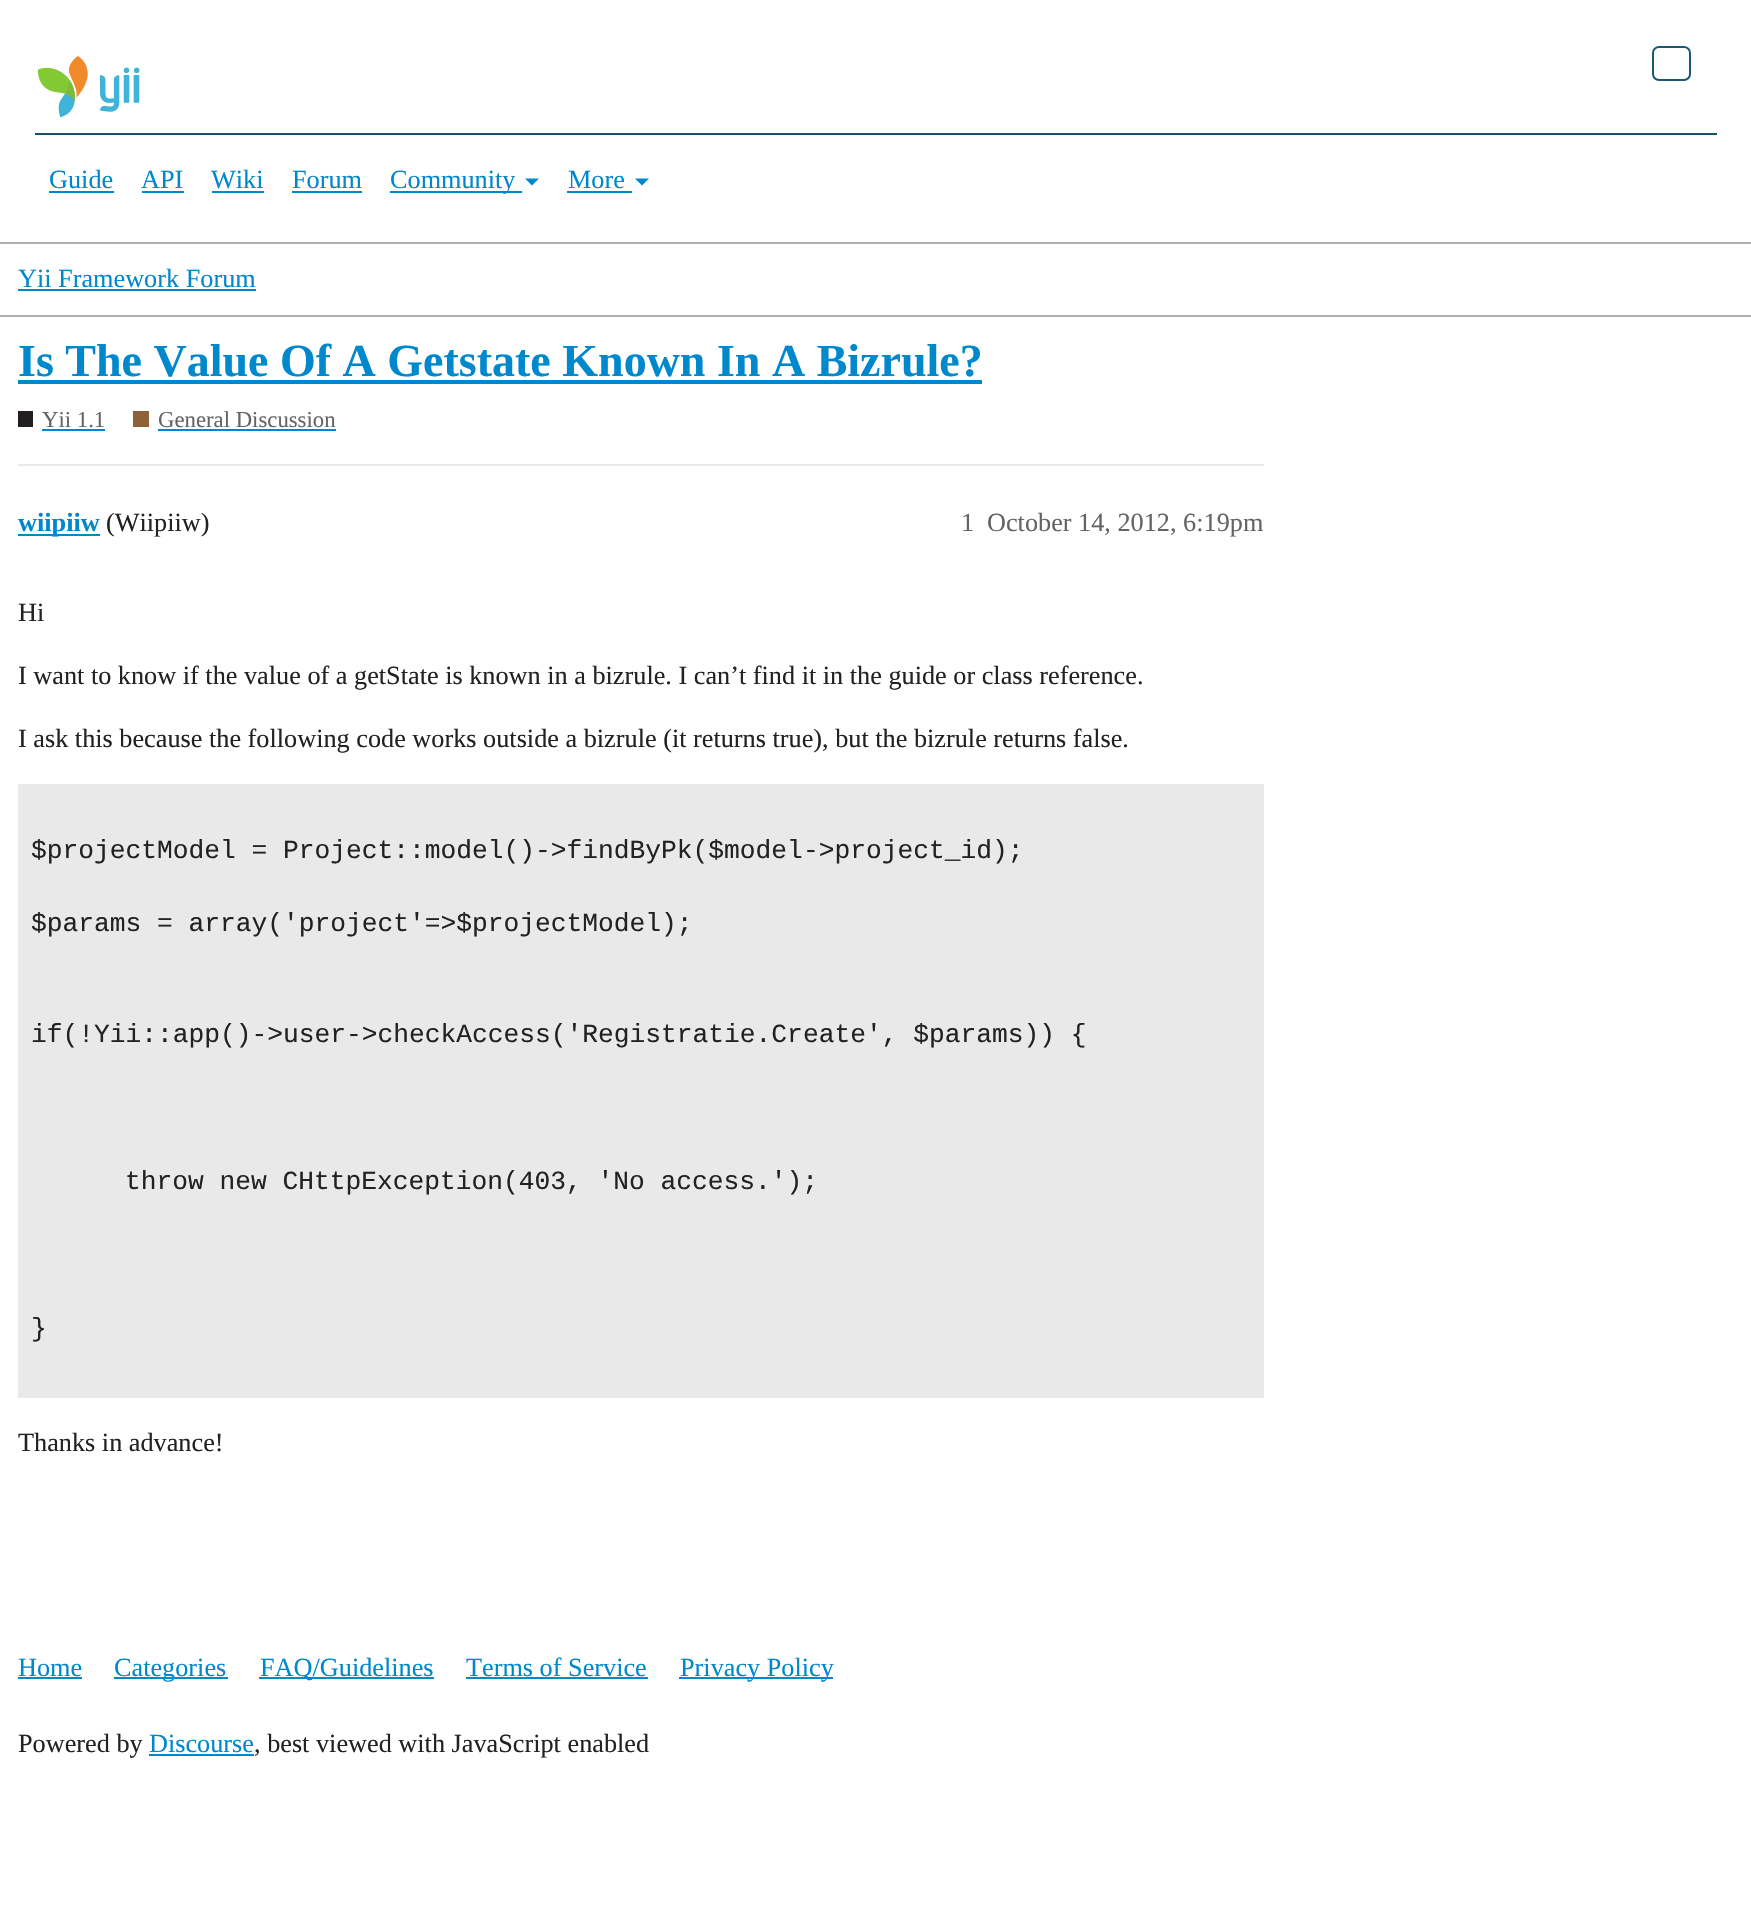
void draw(SkCanvas* canvas) {
  SkPaint paint;
  paint.setAntiAlias(true);
  auto face = [&](const char* family, int weight, float size, bool italic = false) {
    SkFontStyle style(weight, SkFontStyle::kNormal_Width,
      italic ? SkFontStyle::kItalic_Slant : SkFontStyle::kUpright_Slant);
    SkFont result(fontMgr->matchFamilyStyle(family, style), size);
    result.setSubpixel(true);
    return result;
  };
  auto paste = [&](const char* path, float x, float y, float w, float h) {
    auto image = SkImages::DeferredFromEncodedData(SkData::MakeFromFileName(path));
    canvas->drawImageRect(image, SkRect::MakeXYWH(x, y, w, h), SkSamplingOptions());
  };
  auto shape = [&](const char* data, bool evenOdd = false) {
    SkPath result = *SkParsePath::FromSVGString(data);
    if (evenOdd) result.setFillType(SkPathFillType::kEvenOdd);
    return result;
  };
  canvas->clear(0xffffffff);
  paint.setColor(0xffafafaf);
  canvas->drawRect(SkRect::MakeXYWH(0, 242, 1751, 2), paint);
  paste("img/1.png", 37, 56, 103, 61);
  paint.setStroke(true);
  paint.setStrokeWidth(2);
  paint.setColor(0xff195872);
  canvas->drawRoundRect(SkRect::MakeXYWH(1653, 47, 37, 33), 6, 6, paint);
  paint.setStroke(false);
  {
    const struct { float x, y, w, h; SkColor color; } items[] = {
      {35, 133, 1682, 2, 0xff18516a},
      {49, 191, 65, 2, 0xff0088cc},
      {142, 191, 42, 2, 0xff0088cc},
      {212, 191, 52, 2, 0xff0088cc},
      {292, 191, 70, 2, 0xff0088cc},
      {390, 191, 132, 2, 0xff0088cc},
    };
    for (auto [x, y, w, h, color] : items) {
      paint.setColor(color);
      canvas->drawRect(SkRect::MakeXYWH(x, y, w, h), paint);
    }
  }
  canvas->drawPath(shape("M525 178.5H539L532 185.5Z"), paint);
  canvas->drawRect(SkRect::MakeXYWH(567, 191, 65, 2), paint);
  canvas->drawPath(shape("M635 178.5H649L642 185.5Z"), paint);
  {
    const struct { float x, y, w, h; SkColor color; } items[] = {
      {0, 315, 1751, 2, 0xffafafaf},
      {18, 289, 238, 2, 0xff0088cc},
      {18, 380, 964, 4, 0xff0088cc},
      {18, 411, 15, 16, 0xff231f20},
      {42, 429, 63, 2, 0xff0088cc},
      {133, 411, 16, 16, 0xff8c6238},
      {158, 429, 178, 2, 0xff0088cc},
      {18, 464, 1246, 2, 0xffe9e9e9},
      {18, 534, 82, 2, 0xff0088cc},
      {18, 784, 1246, 614, 0xffe9e9e9},
      {18, 1677, 64, 2, 0xff0088cc},
      {114, 1677, 114, 2, 0xff0088cc},
      {259, 1677, 175, 2, 0xff0088cc},
      {466, 1677, 182, 2, 0xff0088cc},
      {679, 1677, 154, 2, 0xff0088cc},
      {149, 1754, 105, 2, 0xff0088cc},
    };
    for (auto [x, y, w, h, color] : items) {
      paint.setColor(color);
      canvas->drawRect(SkRect::MakeXYWH(x, y, w, h), paint);
    }
  }
  auto f0 = face("Liberation Serif", 400, 26.25f);
  {
    const struct { const char* s; float x, y; } items[] = {
      {"Guide", 49, 188},
      {"API", 141, 188},
      {"Wiki", 211, 188},
      {"Forum", 292, 188},
      {"Community", 390, 188},
      {"More", 568, 188},
      {"Yii Framework Forum", 18, 287},
    };
    for (auto [s, x, y] : items) {
      canvas->drawString(s, x, y, f0, paint);
    }
  }
  auto f1 = face("Liberation Serif", 700, 46);
  canvas->drawString("Is The Value Of A Getstate Known In A Bizrule?", 18, 376, f1, paint);
  auto f2 = face("Liberation Serif", 400, 22.75f);
  paint.setColor(0xff646464);
  canvas->drawString("Yii 1.1", 42, 427, f2, paint);
  canvas->drawString("General Discussion", 158, 427, f2, paint);
  auto f3 = face("Liberation Serif", 700, 26.25f);
  paint.setColor(0xff0088cc);
  canvas->drawString("wiipiiw", 18, 531, f3, paint);
  paint.setColor(0xff222222);
  canvas->drawString("(Wiipiiw)", 106, 531, f0, paint);
  paint.setColor(0xff646464);
  canvas->drawString("1", 961, 531, f0, paint);
  canvas->drawString("October 14, 2012, 6:19pm", 987, 531, f0, paint);
  paint.setColor(0xff222222);
  {
    const struct { const char* s; float x, y; } items[] = {
      {"Hi", 18, 621},
      {"I want to know if the value of a getState is known in a bizrule. I can’t find it in the guide or class reference.", 18, 684},
      {"I ask this because the following code works outside a bizrule (it returns true), but the bizrule returns false.", 18, 747},
    };
    for (auto [s, x, y] : items) {
      canvas->drawString(s, x, y, f0, paint);
    }
  }
  auto f4 = face("Liberation Mono", 400, 26.25f);
  {
    const struct { const char* s; float x, y; } items[] = {
      {"$projectModel = Project::model()->findByPk($model->project_id);", 31, 858},
      {"$params = array('project'=>$projectModel);", 31, 931},
      {"if(!Yii::app()->user->checkAccess('Registratie.Create', $params)) {", 31, 1042},
      {"throw new CHttpException(403, 'No access.');", 125, 1189},
      {"}", 31, 1336},
    };
    for (auto [s, x, y] : items) {
      canvas->drawString(s, x, y, f4, paint);
    }
  }
  canvas->drawString("Thanks in advance!", 18, 1451, f0, paint);
  paint.setColor(0xff0088cc);
  {
    const struct { const char* s; float x, y; } items[] = {
      {"Home", 18, 1676},
      {"Categories", 114, 1676},
      {"FAQ/Guidelines", 260, 1676},
      {"Terms of Service", 466, 1676},
      {"Privacy Policy", 680, 1676},
    };
    for (auto [s, x, y] : items) {
      canvas->drawString(s, x, y, f0, paint);
    }
  }
  paint.setColor(0xff222222);
  canvas->drawString("Powered by", 18, 1752, f0, paint);
  paint.setColor(0xff0088cc);
  canvas->drawString("Discourse", 149, 1752, f0, paint);
  paint.setColor(0xff222222);
  canvas->drawString(", best viewed with JavaScript enabled", 254, 1752, f0, paint);
}
